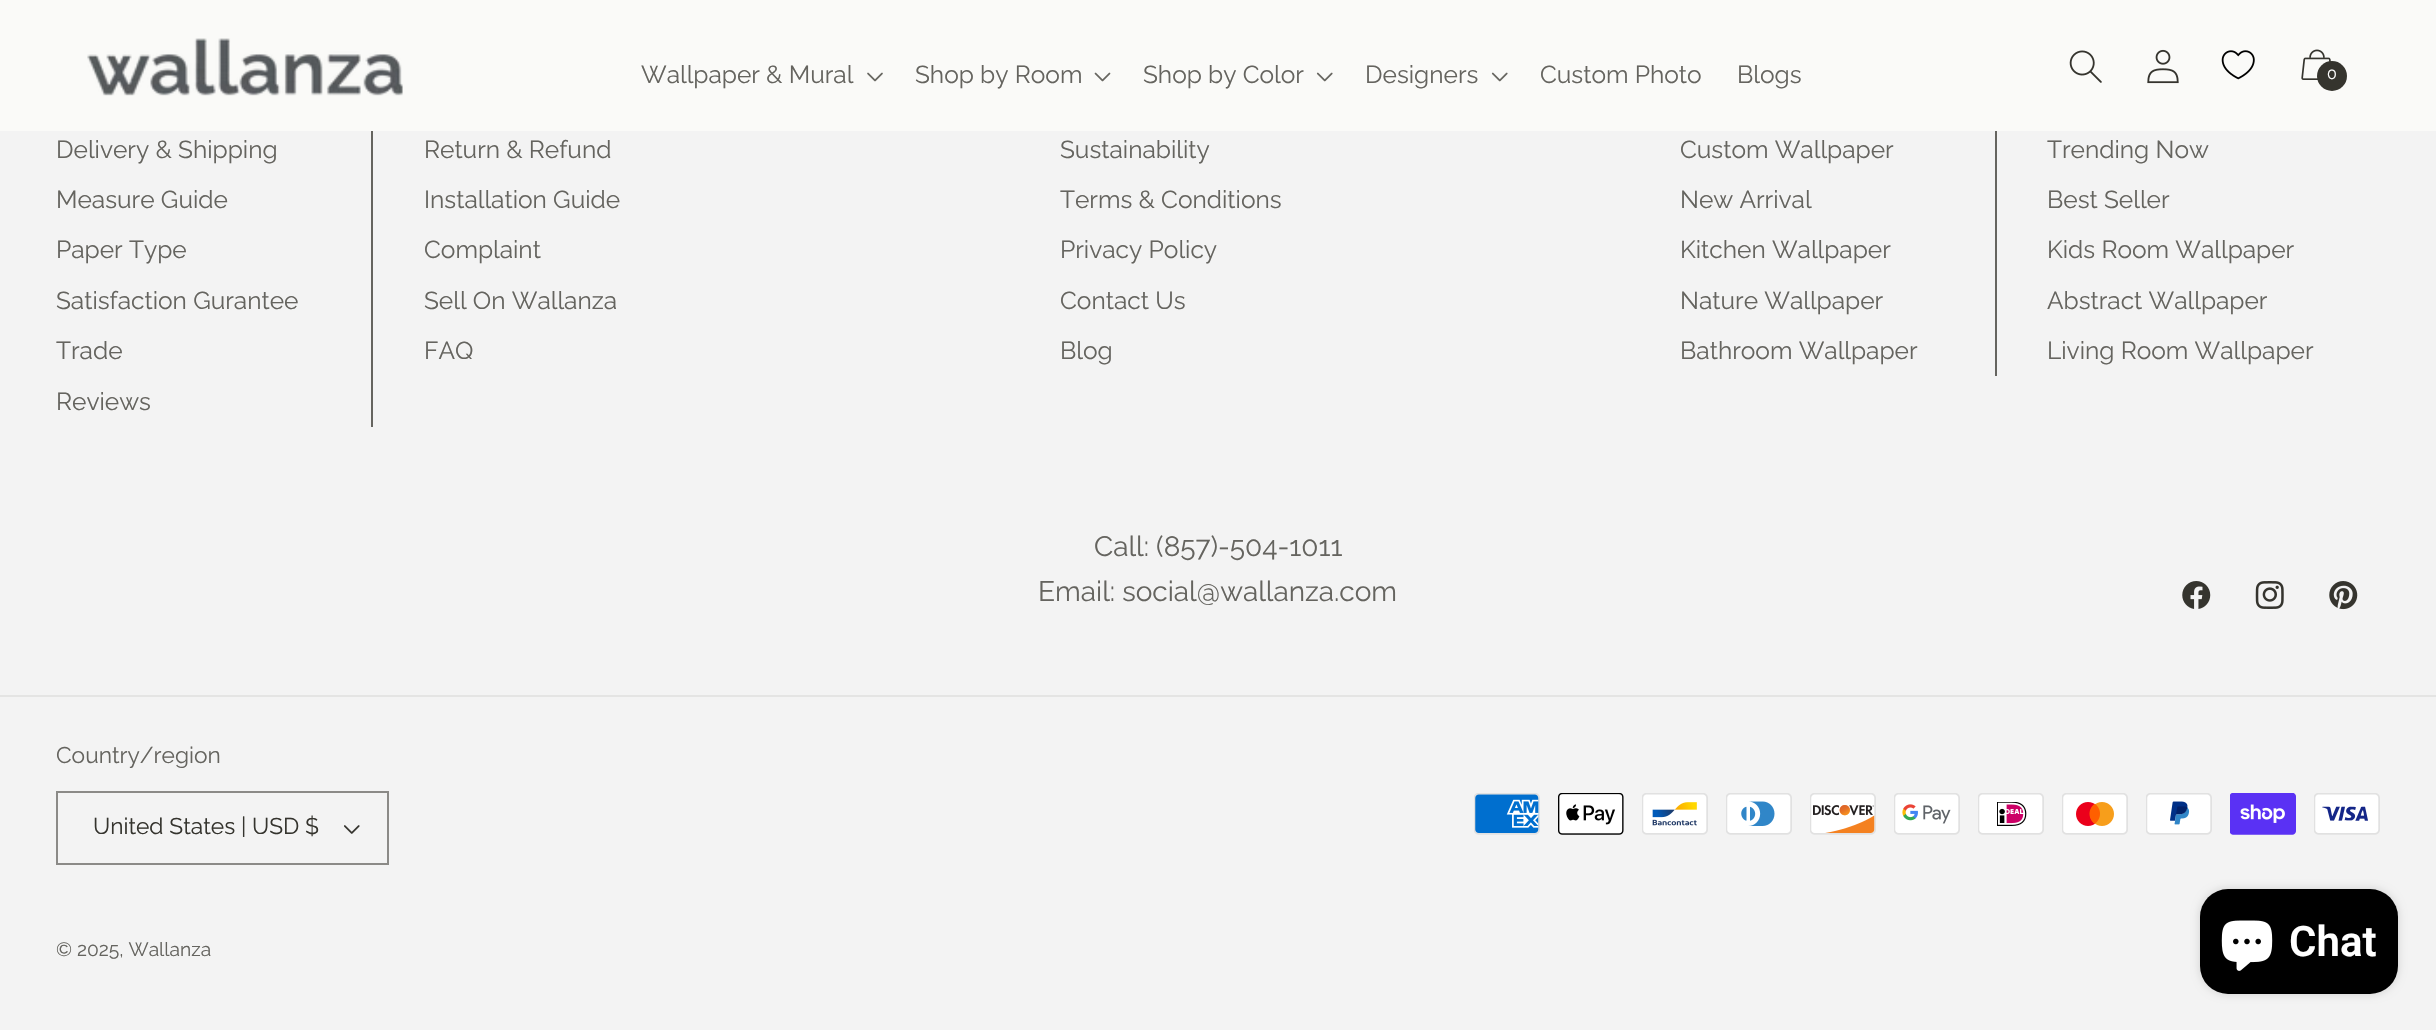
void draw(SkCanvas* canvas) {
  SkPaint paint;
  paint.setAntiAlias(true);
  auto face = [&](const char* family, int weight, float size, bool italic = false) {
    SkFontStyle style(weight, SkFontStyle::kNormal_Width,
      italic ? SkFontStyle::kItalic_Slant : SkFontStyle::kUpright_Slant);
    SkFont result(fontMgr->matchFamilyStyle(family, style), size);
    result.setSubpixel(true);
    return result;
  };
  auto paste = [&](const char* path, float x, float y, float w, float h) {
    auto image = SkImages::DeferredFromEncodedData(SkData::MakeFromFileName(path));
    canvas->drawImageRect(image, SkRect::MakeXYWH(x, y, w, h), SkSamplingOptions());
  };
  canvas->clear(0xfff3f3f3);
  paint.setColor(0xfffafaf8);
  canvas->drawRect(SkRect::MakeXYWH(0, 0, 2436, 131), paint);
  paste("img/1.png", 87, 38, 316, 58);
  paste("img/2.png", 867, 72, 16, 10);
  paste("img/3.png", 1094, 72, 17, 10);
  paste("img/4.png", 1316, 72, 17, 10);
  paste("img/4.png", 1491, 72, 17, 10);
  paste("img/5.png", 2069, 50, 33, 33);
  paste("img/6.png", 2147, 49, 32, 35);
  paste("img/7.png", 2221, 50, 34, 30);
  paste("img/8.png", 2301, 49, 30, 31);
  paint.setColor(0xff35342e);
  canvas->drawCircle(2332, 76, 15, paint);
  paint.setColor(0xff65645f);
  canvas->drawRect(SkRect::MakeXYWH(371, 131, 2, 296), paint);
  canvas->drawRect(SkRect::MakeXYWH(1995, 131, 2, 245), paint);
  paste("img/9.png", 2182, 581, 29, 28);
  paste("img/10.png", 2255, 581, 29, 28);
  paste("img/11.png", 2329, 581, 29, 29);
  paint.setColor(0xffe4e4e3);
  canvas->drawRect(SkRect::MakeXYWH(0, 695, 2436, 2), paint);
  paste("img/12.png", 344, 825, 16, 9);
  paint.setStroke(true);
  paint.setStrokeWidth(2);
  paint.setColor(0xff8b8a87);
  canvas->drawRect(SkRect::MakeXYWH(57, 792, 331, 72), paint);
  paste("img/13.png", 1474, 793, 66, 42);
  paste("img/14.png", 1558, 793, 66, 42);
  paste("img/15.png", 1642, 793, 66, 42);
  paste("img/16.png", 1726, 793, 66, 42);
  paste("img/17.png", 1810, 793, 66, 42);
  paste("img/18.png", 1894, 793, 66, 42);
  paste("img/19.png", 1978, 793, 66, 42);
  paste("img/20.png", 2062, 793, 66, 42);
  paste("img/21.png", 2146, 793, 66, 42);
  paste("img/22.png", 2230, 793, 66, 42);
  paste("img/23.png", 2314, 793, 66, 42);
  paint.setStroke(false);
  paint.setColor(0x26000000);
  paint.setMaskFilter(SkMaskFilter::MakeBlur(kNormal_SkBlurStyle, 4.5f));
  canvas->drawRoundRect(SkRect::MakeXYWH(2200, 889, 198, 105), 28, 28, paint);
  paint.setMaskFilter(nullptr);
  paint.setColor(0xff000000);
  canvas->drawRoundRect(SkRect::MakeXYWH(2200, 889, 198, 105), 28, 28, paint);
  paste("img/24.png", 2221, 920, 52, 51);
  auto f0 = face("Raleway", 400, 24.5f);
  paint.setColor(0xff65645f);
  {
    const struct { const char* s; float x, y; } items[] = {
      {"Wallpaper & Mural", 641, 83},
      {"Shop by Room", 915, 83},
      {"Shop by Color", 1143, 83},
      {"Designers", 1365, 83},
      {"Custom Photo", 1540, 83},
      {"Blogs", 1737, 83},
    };
    for (auto [s, x, y] : items) {
      canvas->drawString(s, x, y, f0, paint);
    }
  }
  auto f1 = face("Raleway", 400, 16);
  paint.setColor(0xffffffff);
  canvas->drawString("0", 2327, 79, f1, paint);
  paint.setColor(0xff65645f);
  {
    const struct { const char* s; float x, y; } items[] = {
      {"Delivery & Shipping", 56, 158},
      {"Return & Refund", 424, 158},
      {"Measure Guide", 56, 208},
      {"Installation Guide", 424, 208},
      {"Paper Type", 56, 258},
      {"Complaint", 424, 258},
      {"Satisfaction Gurantee", 56, 309},
      {"Sell On Wallanza", 424, 309},
      {"Trade", 56, 359},
      {"FAQ", 424, 359},
      {"Reviews", 56, 410},
      {"Sustainability", 1060, 158},
      {"Terms & Conditions", 1060, 208},
      {"Privacy Policy", 1060, 258},
      {"Contact Us", 1060, 309},
      {"Blog", 1060, 359},
      {"Custom Wallpaper", 1680, 158},
      {"Trending Now", 2047, 158},
      {"New Arrival", 1680, 208},
      {"Best Seller", 2047, 208},
      {"Kitchen Wallpaper", 1680, 258},
      {"Kids Room Wallpaper", 2047, 258},
      {"Nature Wallpaper", 1680, 309},
      {"Abstract Wallpaper", 2047, 309},
      {"Bathroom Wallpaper", 1680, 359},
      {"Living Room Wallpaper", 2047, 359},
    };
    for (auto [s, x, y] : items) {
      canvas->drawString(s, x, y, f0, paint);
    }
  }
  auto f2 = face("Raleway", 400, 28);
  canvas->drawString("Call: (857)-504-1011", 1094, 556, f2, paint);
  canvas->drawString("Email: social@wallanza.com", 1038, 601, f2, paint);
  auto f3 = face("Raleway", 400, 22.75f);
  canvas->drawString("Country/region", 56, 763, f3, paint);
  paint.setColor(0xff35342e);
  canvas->drawString("United States | USD $", 93, 834, f3, paint);
  auto f4 = face("Raleway", 400, 19.25f);
  paint.setColor(0xff65645f);
  canvas->drawString("© 2025, Wallanza", 56, 956, f4, paint);
  auto f5 = face("Roboto", 600, 42);
  paint.setColor(0xffffffff);
  canvas->drawString("Chat", 2289, 956, f5, paint);
}
